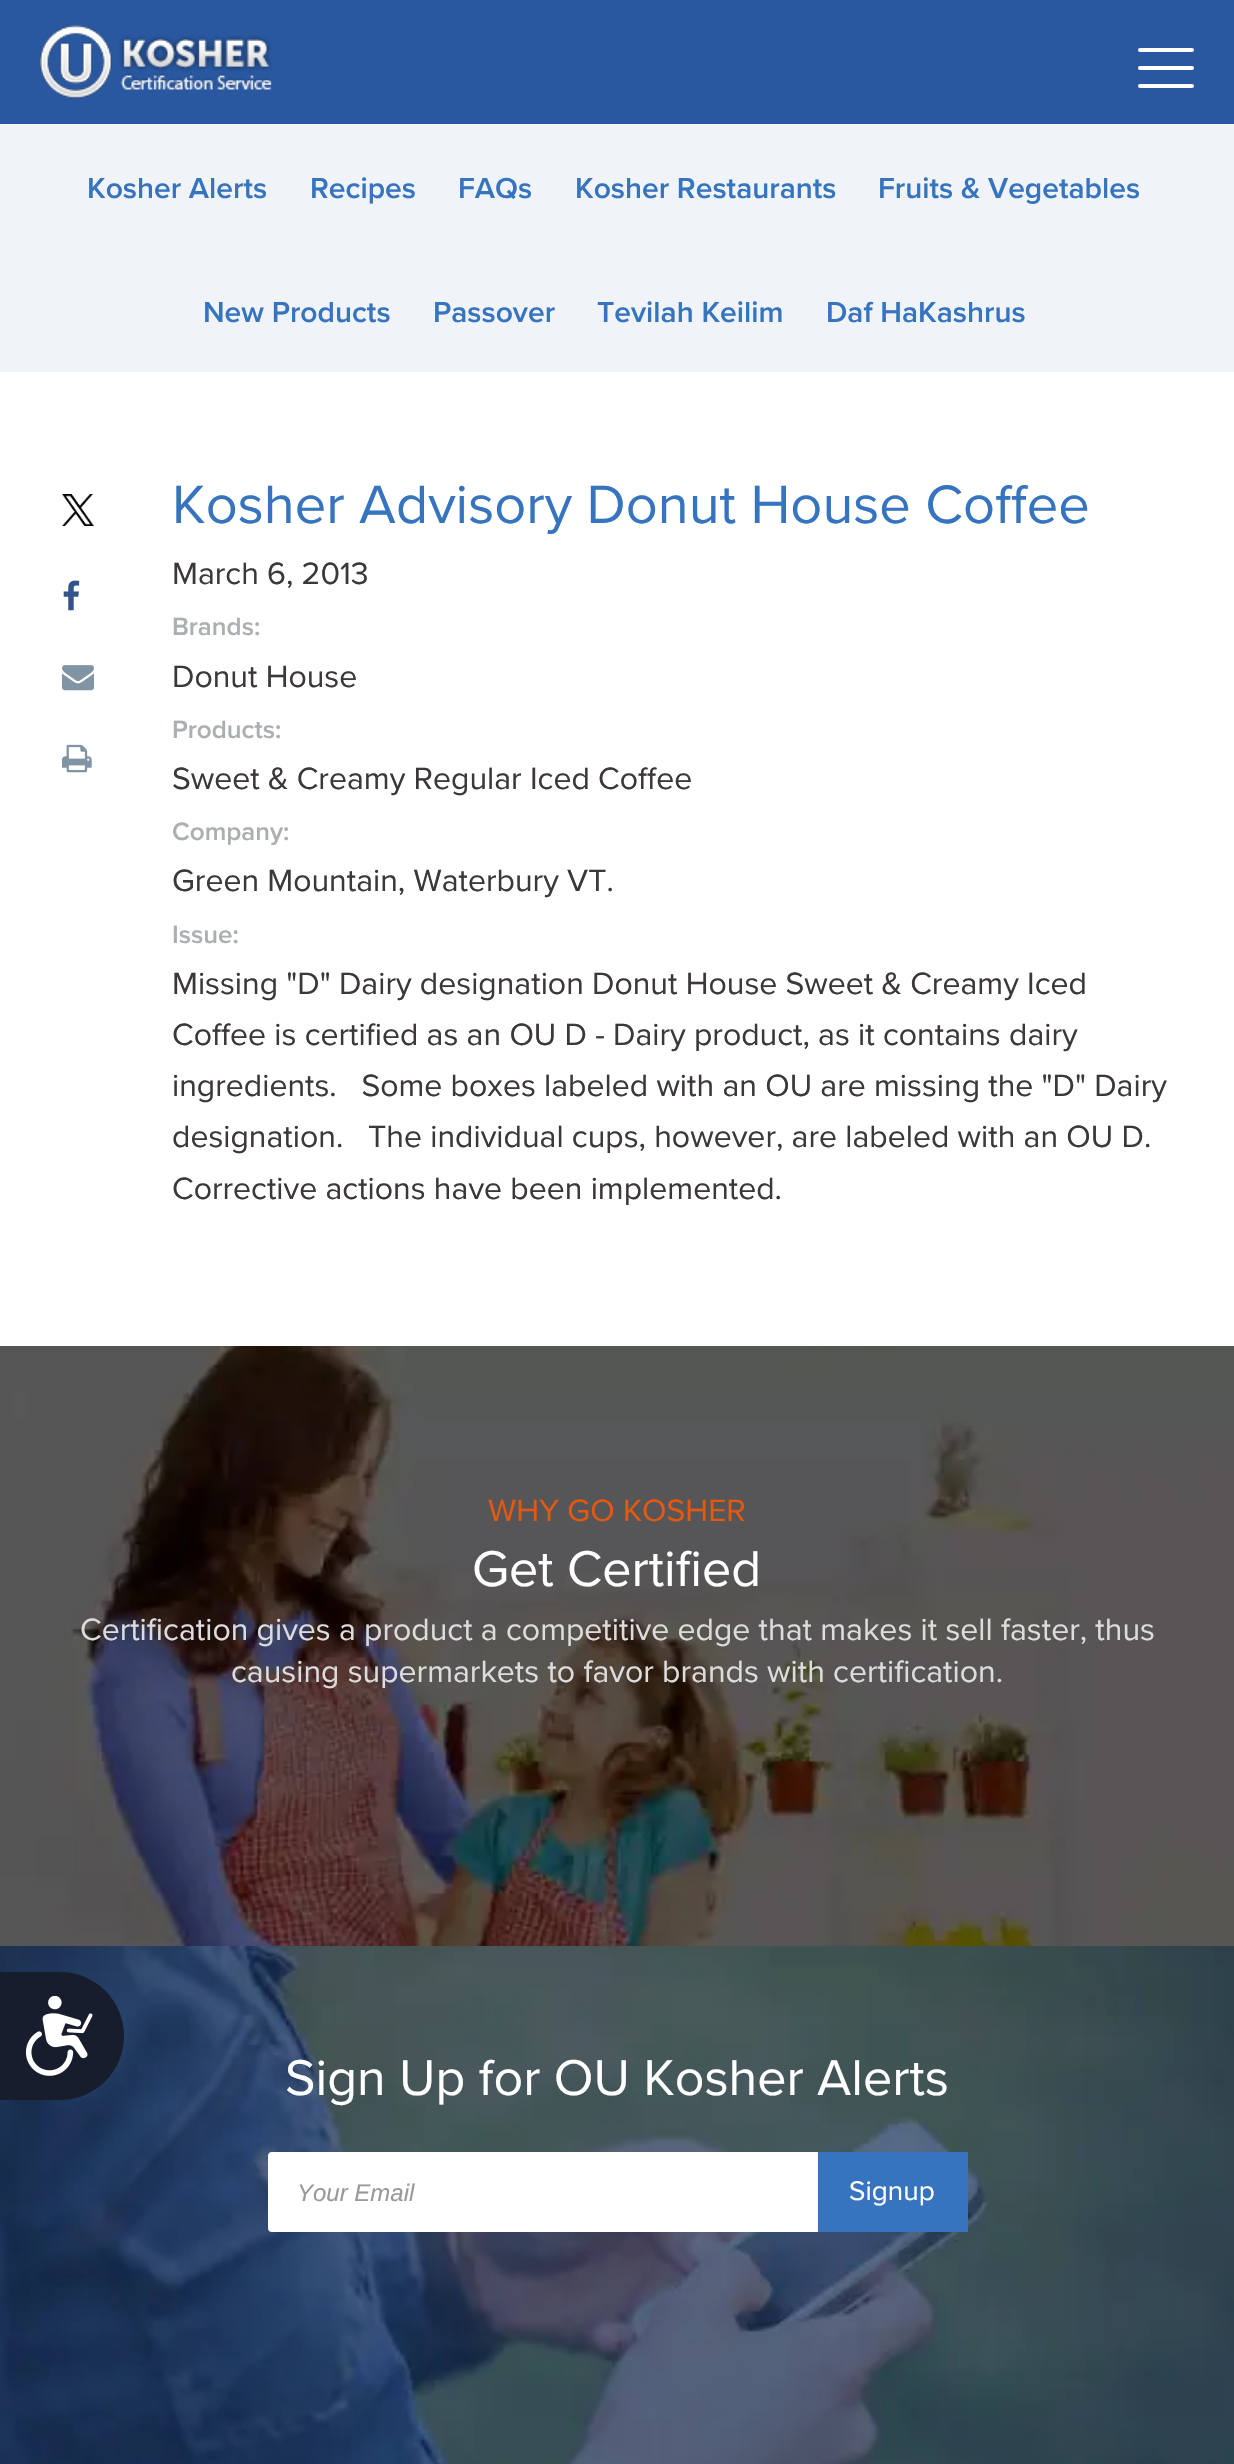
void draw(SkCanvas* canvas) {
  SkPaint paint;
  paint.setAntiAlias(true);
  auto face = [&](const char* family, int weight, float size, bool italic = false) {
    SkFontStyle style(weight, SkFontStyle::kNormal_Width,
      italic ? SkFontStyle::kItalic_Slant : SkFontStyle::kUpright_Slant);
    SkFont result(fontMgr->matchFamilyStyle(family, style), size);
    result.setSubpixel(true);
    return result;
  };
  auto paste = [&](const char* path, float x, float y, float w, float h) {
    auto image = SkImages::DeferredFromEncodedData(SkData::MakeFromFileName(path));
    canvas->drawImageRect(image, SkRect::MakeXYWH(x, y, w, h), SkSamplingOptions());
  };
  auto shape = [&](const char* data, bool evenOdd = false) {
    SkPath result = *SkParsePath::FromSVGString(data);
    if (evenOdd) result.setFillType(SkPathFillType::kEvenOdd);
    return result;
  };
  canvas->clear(0xffffffff);
  paint.setColor(0xff2958a0);
  canvas->drawRect(SkRect::MakeXYWH(0, 0, 1234, 124), paint);
  paste("img/1.png", 40, 25, 232, 74);
  paint.setColor(0xffffffff);
  canvas->drawRoundRect(SkRect::MakeXYWH(1138, 48, 56, 4), 2, 2, paint);
  canvas->drawRoundRect(SkRect::MakeXYWH(1138, 66, 56, 4), 2, 2, paint);
  canvas->drawRoundRect(SkRect::MakeXYWH(1138, 84, 56, 4), 2, 2, paint);
  paint.setColor(0xfff0f4f8);
  canvas->drawRect(SkRect::MakeXYWH(0, 124, 1234, 248), paint);
  paste("img/2.png", 62, 494, 32, 32);
  paste("img/3.png", 63, 580, 17, 31);
  paste("img/4.png", 62, 665, 32, 26);
  paste("img/5.png", 62, 744, 30, 29);
  paste("img/8.png", 0, 1946, 1234, 518);
  paint.setColor(0xff171d2d);
  canvas->drawPath(shape("M0 1972H60C95.5 1972 124 2000.5 124 2036C124 2071.5 95.5 2100 60 2100H0Z"), paint);
  paste("img/6.png", 25, 1996, 68, 80);
  paste("img/7.png", 0, 1346, 1234, 600);
  paint.setColor(0xffffffff);
  canvas->drawRoundRect(SkRect::MakeXYWH(268, 2152, 700, 80), 4, 4, paint);
  paint.setColor(0xff3674c0);
  canvas->drawRect(SkRect::MakeXYWH(818, 2152, 150, 80), paint);
  auto f0 = face("Proxima Nova", 600, 30);
  {
    const struct { const char* s; float x, y; } items[] = {
      {"Kosher Alerts", 87, 198},
      {"Recipes", 310, 198},
      {"FAQs", 458, 198},
      {"Kosher Restaurants", 575, 198},
      {"Fruits & Vegetables", 878, 198},
      {"New Products", 203, 322},
      {"Passover", 433, 322},
      {"Tevilah Keilim", 597, 322},
      {"Daf HaKashrus", 826, 322},
    };
    for (auto [s, x, y] : items) {
      canvas->drawString(s, x, y, f0, paint);
    }
  }
  auto f1 = face("Proxima Nova", 400, 56);
  canvas->drawString("Kosher Advisory Donut House Coffee", 172, 523, f1, paint);
  auto f2 = face("Proxima Nova", 400, 32);
  paint.setColor(0xff3c3839);
  canvas->drawString("March 6, 2013", 172, 584, f2, paint);
  auto f3 = face("Proxima Nova", 600, 26);
  paint.setColor(0xffacafb2);
  canvas->drawString("Brands:", 172, 635, f3, paint);
  paint.setColor(0xff3c3839);
  canvas->drawString("Donut House", 172, 687, f2, paint);
  paint.setColor(0xffacafb2);
  canvas->drawString("Products:", 172, 738, f3, paint);
  paint.setColor(0xff3c3839);
  canvas->drawString("Sweet & Creamy Regular Iced Coffee", 172, 789, f2, paint);
  paint.setColor(0xffacafb2);
  canvas->drawString("Company:", 172, 840, f3, paint);
  paint.setColor(0xff3c3839);
  canvas->drawString("Green Mountain, Waterbury VT.", 172, 891, f2, paint);
  paint.setColor(0xffacafb2);
  canvas->drawString("Issue:", 172, 943, f3, paint);
  paint.setColor(0xff3c3839);
  {
    const struct { const char* s; float x, y; } items[] = {
      {"Missing \"D\" Dairy designation Donut House Sweet & Creamy Iced", 172, 994},
      {"Coffee is certified as an OU D - Dairy product, as it contains dairy", 172, 1045},
      {"ingredients.   Some boxes labeled with an OU are missing the \"D\" Dairy", 172, 1096},
      {"designation.   The individual cups, however, are labeled with an OU D.", 172, 1147},
      {"Corrective actions have been implemented.", 172, 1199},
    };
    for (auto [s, x, y] : items) {
      canvas->drawString(s, x, y, f2, paint);
    }
  }
  paint.setColor(0xffe5580f);
  canvas->drawString("WHY GO KOSHER", 488, 1521, f2, paint);
  auto f4 = face("Proxima Nova", 400, 52);
  paint.setColor(0xffffffff);
  canvas->drawString("Get Certified", 472, 1586, f4, paint);
  paint.setColor(0xffdcdcdc);
  canvas->drawString("Certification gives a product a competitive edge that makes it sell faster, thus", 80, 1640, f2, paint);
  canvas->drawString("causing supermarkets to favor brands with certification.", 231, 1682, f2, paint);
  paint.setColor(0xffffffff);
  canvas->drawString("Sign Up for OU Kosher Alerts", 285, 2095, f4, paint);
  auto f5 = face("Liberation Sans", 400, 24, true);
  paint.setColor(0xff999999);
  canvas->drawString("Your Email", 297, 2201, f5, paint);
  auto f6 = face("Proxima Nova", 400, 28);
  paint.setColor(0xffffffff);
  canvas->drawString("Signup", 849, 2200, f6, paint);
}
